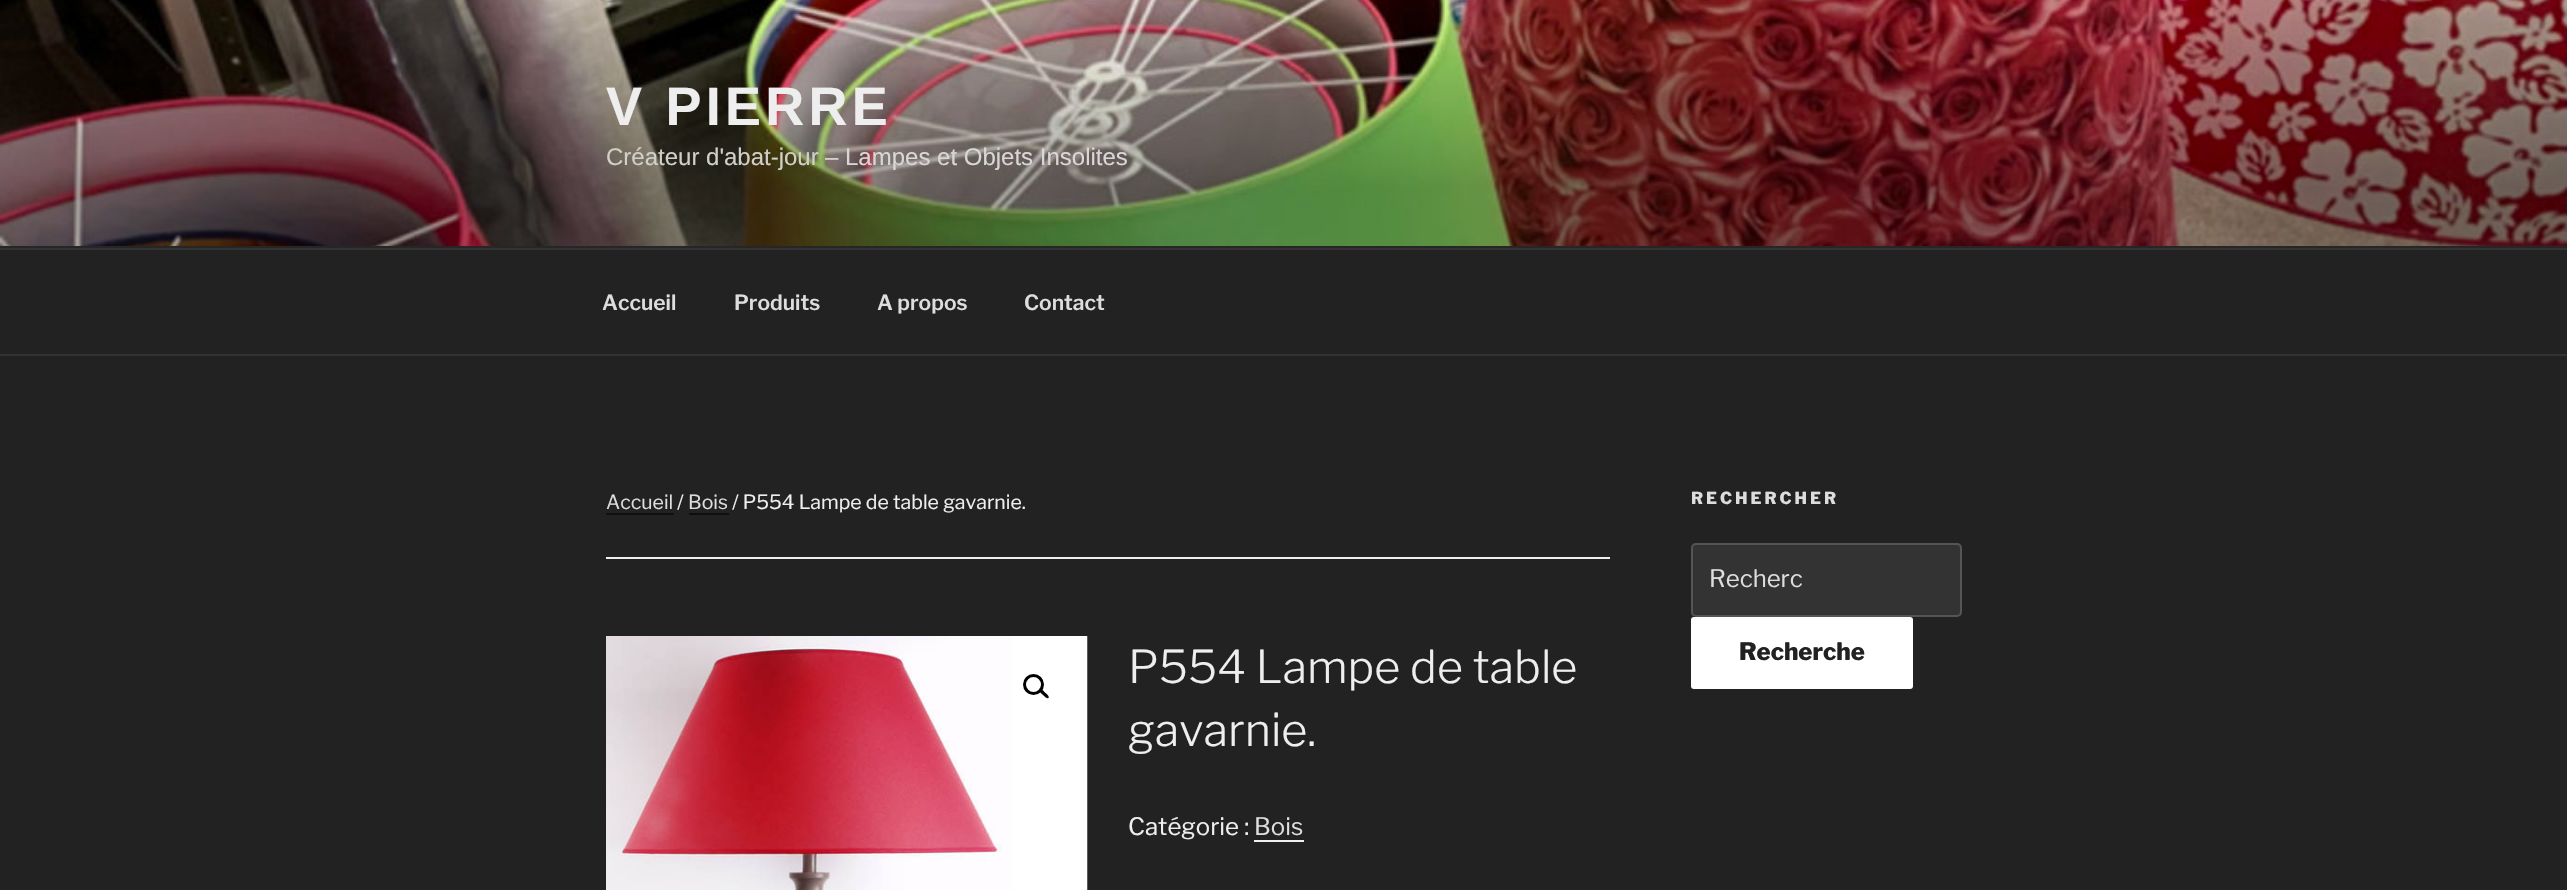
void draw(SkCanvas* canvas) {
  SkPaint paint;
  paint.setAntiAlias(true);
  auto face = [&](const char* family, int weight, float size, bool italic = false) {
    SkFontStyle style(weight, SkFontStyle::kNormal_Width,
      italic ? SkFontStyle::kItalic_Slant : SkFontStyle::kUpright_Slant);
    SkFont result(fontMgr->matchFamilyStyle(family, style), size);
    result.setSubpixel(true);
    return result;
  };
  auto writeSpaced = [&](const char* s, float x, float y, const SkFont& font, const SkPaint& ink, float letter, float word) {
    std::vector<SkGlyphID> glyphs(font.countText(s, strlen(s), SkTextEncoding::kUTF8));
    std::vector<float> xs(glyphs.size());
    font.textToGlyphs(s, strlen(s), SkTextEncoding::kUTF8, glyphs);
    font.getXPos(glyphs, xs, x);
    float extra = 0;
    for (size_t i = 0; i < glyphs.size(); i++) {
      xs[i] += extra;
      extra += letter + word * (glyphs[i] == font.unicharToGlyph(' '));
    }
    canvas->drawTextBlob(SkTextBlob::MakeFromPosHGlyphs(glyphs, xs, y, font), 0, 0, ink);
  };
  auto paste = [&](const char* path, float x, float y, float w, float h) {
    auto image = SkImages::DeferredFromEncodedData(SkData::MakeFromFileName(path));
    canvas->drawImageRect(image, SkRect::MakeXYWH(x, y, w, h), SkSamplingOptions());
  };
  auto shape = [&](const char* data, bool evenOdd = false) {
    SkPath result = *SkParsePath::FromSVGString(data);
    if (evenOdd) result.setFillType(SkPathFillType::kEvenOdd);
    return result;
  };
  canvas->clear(0xff222222);
  paint.setColor(0xff262626);
  canvas->drawRect(SkRect::MakeXYWH(0, 246, 2567, 2), paint);
  paste("img/1.png", 0, 0, 2567, 246);
  {
    const struct { float x, y, w, h; SkColor color; } items[] = {
      {0, 248, 2567, 2, 0xff333333},
      {0, 354, 2567, 2, 0xff333333},
      {606, 557, 1004, 2, 0xffeeeeee},
    };
    for (auto [x, y, w, h, color] : items) {
      paint.setColor(color);
      canvas->drawRect(SkRect::MakeXYWH(x, y, w, h), paint);
    }
  }
  paint.setColor(0xff0f0f0f);
  canvas->drawPath(shape("M606 513V515H674V491V513Z"), paint);
  canvas->drawRect(SkRect::MakeXYWH(689, 513, 40, 2), paint);
  paste("img/2.png", 606, 636, 482, 254);
  paint.setStroke(true);
  paint.setStrokeWidth(3);
  paint.setColor(0xff000000);
  canvas->drawCircle(1033.5f, 684.5f, 9, paint);
  paint.setStroke(false);
  canvas->drawPath(shape("M1040 689.5C1041.5 688 1044.5 692 1045 692.5C1046 693.5 1050 696.5 1048.5 698C1046.5 699.5 1044 695.5 1043 695C1042 694 1038 691 1040 689.5Z"), paint);
  paint.setColor(0xfff0f0f0);
  canvas->drawRect(SkRect::MakeXYWH(1254, 840, 50, 2), paint);
  paint.setColor(0xff333333);
  canvas->drawRoundRect(SkRect::MakeXYWH(1692, 544, 269, 72), 4, 4, paint);
  paint.setStroke(true);
  paint.setStrokeWidth(2);
  paint.setColor(0xff555555);
  canvas->drawRoundRect(SkRect::MakeXYWH(1692, 544, 269, 72), 4, 4, paint);
  paint.setStroke(false);
  paint.setColor(0xffffffff);
  canvas->drawRoundRect(SkRect::MakeXYWH(1691, 617, 222, 72), 3, 3, paint);
  auto f0 = face("Liberation Sans", 700, 54);
  paint.setColor(0xffeeeeee);
  writeSpaced("V PIERRE", 606, 125, f0, paint, 4.25f, 0);
  auto f1 = face("Liberation Sans", 400, 24);
  paint.setColor(0xffd0cfcb);
  canvas->drawString("Créateur d'abat-jour", 606, 165, f1, paint);
  paint.setColor(0xffd9d7d6);
  canvas->drawString("– Lampes et Objets Insolites", 825, 165, f1, paint);
  auto f2 = face("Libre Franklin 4", 100, 21);
  paint.setColor(0xffdddddd);
  {
    const struct { const char* s; float x, y; } items[] = {
      {"Accueil", 602, 310},
      {"Produits", 734, 310},
      {"A propos", 877, 310},
      {"Contact", 1024, 310},
    };
    for (auto [s, x, y] : items) {
      canvas->drawString(s, x, y, f2, paint);
    }
  }
  auto f3 = face("Libre Franklin", 100, 19.5f);
  canvas->drawString("Accueil", 606, 509, f3, paint);
  paint.setColor(0xffeeeeee);
  canvas->drawString("/", 677, 509, f3, paint);
  paint.setColor(0xffdddddd);
  canvas->drawString("Bois", 688, 509, f3, paint);
  paint.setColor(0xffeeeeee);
  canvas->drawString("/ P554 Lampe de table gavarnie.", 732, 509, f3, paint);
  auto f4 = face("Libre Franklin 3", 100, 45);
  canvas->drawString("P554 Lampe de table", 1128, 683, f4, paint);
  canvas->drawString("gavarnie.", 1128, 746, f4, paint);
  auto f5 = face("Libre Franklin", 100, 24);
  canvas->drawString("Catégorie :", 1128, 835, f5, paint);
  paint.setColor(0xffdddddd);
  canvas->drawString("Bois", 1254, 835, f5, paint);
  auto f6 = face("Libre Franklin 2", 100, 16.5f);
  writeSpaced("RECHERCHER", 1691, 504, f6, paint, 3, 0);
  canvas->drawString("Recherc", 1709, 587, f5, paint);
  auto f7 = face("Libre Franklin 2", 100, 24);
  paint.setColor(0xff222222);
  canvas->drawString("Recherche", 1739, 660, f7, paint);
}
